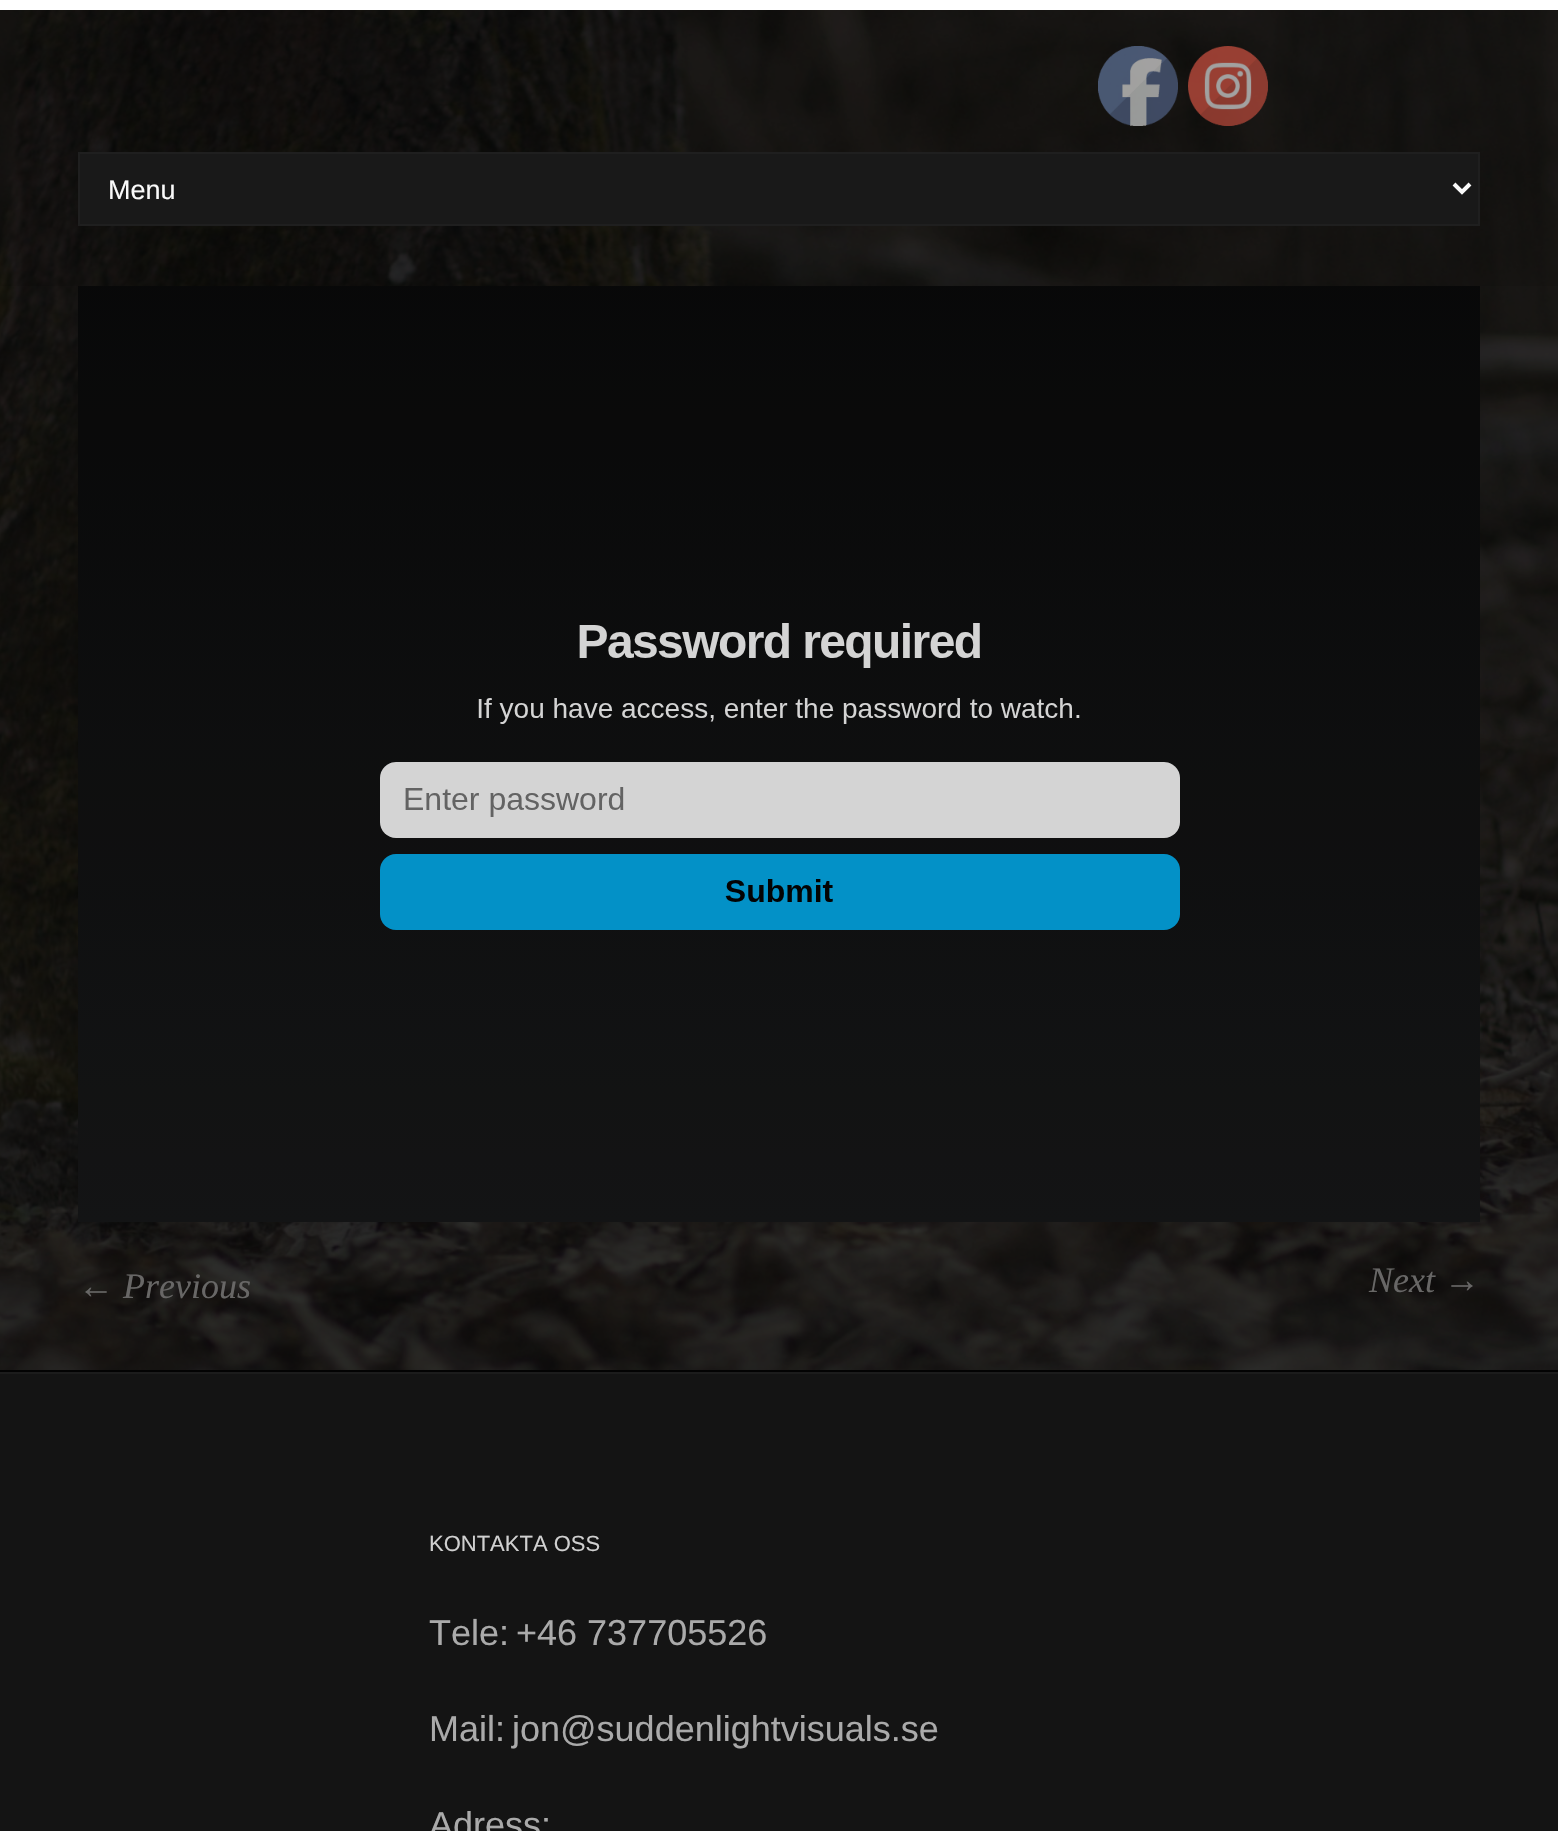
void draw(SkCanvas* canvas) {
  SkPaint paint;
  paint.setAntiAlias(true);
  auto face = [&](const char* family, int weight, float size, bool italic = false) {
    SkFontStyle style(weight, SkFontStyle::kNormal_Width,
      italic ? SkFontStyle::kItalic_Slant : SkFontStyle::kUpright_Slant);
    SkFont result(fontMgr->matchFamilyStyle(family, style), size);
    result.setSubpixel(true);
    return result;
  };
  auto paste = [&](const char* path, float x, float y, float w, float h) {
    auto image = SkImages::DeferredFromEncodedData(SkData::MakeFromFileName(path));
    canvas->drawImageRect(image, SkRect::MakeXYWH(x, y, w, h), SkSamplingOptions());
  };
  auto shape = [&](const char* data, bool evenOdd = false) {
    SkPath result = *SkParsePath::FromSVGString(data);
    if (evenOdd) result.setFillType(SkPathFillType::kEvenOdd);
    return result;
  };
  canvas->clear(0xff141414);
  paint.setColor(0xffffffff);
  canvas->drawRect(SkRect::MakeXYWH(0, 0, 1558, 10), paint);
  paste("img/1.png", 0, 10, 1558, 1360);
  paint.setColor(0x99000000);
  canvas->drawRect(SkRect::MakeXYWH(0, 10, 1558, 276), paint);
  paste("img/2.png", 1098, 46, 80, 80);
  paste("img/3.png", 1188, 46, 80, 80);
  paint.setColor(0xff191919);
  canvas->drawRect(SkRect::MakeXYWH(79, 153, 1400, 72), paint);
  paint.setStroke(true);
  paint.setStrokeWidth(2);
  paint.setColor(0xff1f1f1f);
  canvas->drawRect(SkRect::MakeXYWH(79, 153, 1400, 72), paint);
  paint.setStrokeWidth(4);
  paint.setColor(0xfffafafa);
  canvas->drawPath(shape("M1454 184L1462 192L1470 184"), paint);
  paint.setStroke(false);
  paint.setColor(0x99030303);
  canvas->drawRect(SkRect::MakeXYWH(0, 286, 1558, 1084), paint);
  paste("img/4.png", 78, 286, 1402, 936);
  paint.setColor(0xff030303);
  canvas->drawRect(SkRect::MakeXYWH(0, 1370, 1558, 2), paint);
  paint.setColor(0xff1c1c1c);
  canvas->drawRect(SkRect::MakeXYWH(0, 1372, 1558, 2), paint);
  auto f0 = face("Liberation Sans", 400, 27);
  paint.setColor(0xfffafafa);
  canvas->drawString("Menu", 108, 199, f0, paint);
  auto f1 = face("Liberation Serif", 400, 36, true);
  paint.setColor(0xff686766);
  canvas->drawString("← Previous", 78, 1298, f1, paint);
  canvas->drawString("Next →", 1369, 1292, f1, paint);
  auto f2 = face("Liberation Sans", 400, 22);
  paint.setColor(0xffd0d0d0);
  canvas->drawString("KONTAKTA OSS", 429, 1551, f2, paint);
  auto f3 = face("Liberation Sans", 400, 36);
  paint.setColor(0xffaaaaaa);
  {
    const struct { const char* s; float x, y; } items[] = {
      {"Tele:", 429, 1645},
      {"+46 737705526", 516, 1645},
      {"Mail:", 429, 1741},
      {"jon@suddenlightvisuals.se", 512, 1741},
      {"Adress:", 429, 1837},
    };
    for (auto [s, x, y] : items) {
      canvas->drawString(s, x, y, f3, paint);
    }
  }
}
